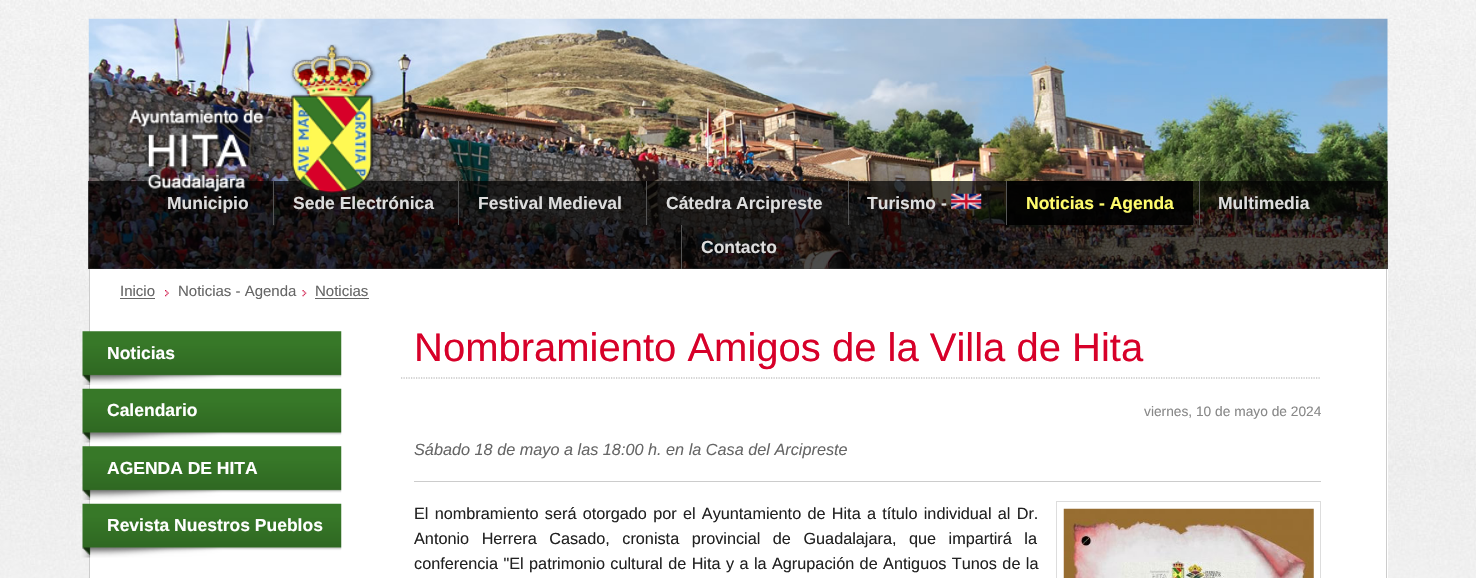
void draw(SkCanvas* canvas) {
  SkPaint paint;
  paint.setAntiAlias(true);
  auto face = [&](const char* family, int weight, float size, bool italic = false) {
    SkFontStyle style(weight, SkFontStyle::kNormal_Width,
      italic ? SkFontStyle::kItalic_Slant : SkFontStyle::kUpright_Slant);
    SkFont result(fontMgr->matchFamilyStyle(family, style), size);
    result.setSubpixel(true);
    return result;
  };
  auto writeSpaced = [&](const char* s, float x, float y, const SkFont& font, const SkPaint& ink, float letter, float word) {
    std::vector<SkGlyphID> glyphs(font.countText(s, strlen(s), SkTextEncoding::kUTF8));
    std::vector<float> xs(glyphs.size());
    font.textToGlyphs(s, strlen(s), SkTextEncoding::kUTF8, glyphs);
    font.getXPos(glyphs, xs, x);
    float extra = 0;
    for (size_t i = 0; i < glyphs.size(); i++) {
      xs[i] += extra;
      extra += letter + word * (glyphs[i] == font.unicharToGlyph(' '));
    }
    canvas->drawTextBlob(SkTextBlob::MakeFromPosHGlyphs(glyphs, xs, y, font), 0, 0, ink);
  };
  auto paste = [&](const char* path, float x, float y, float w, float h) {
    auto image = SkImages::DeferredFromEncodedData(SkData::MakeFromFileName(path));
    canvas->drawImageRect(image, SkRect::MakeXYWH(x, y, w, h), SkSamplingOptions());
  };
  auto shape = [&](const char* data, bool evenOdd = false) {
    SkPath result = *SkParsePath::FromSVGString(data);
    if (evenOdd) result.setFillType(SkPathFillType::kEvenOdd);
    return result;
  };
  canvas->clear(0xffffffff);
  paste("img/1.png", 0, 0, 1476, 578);
  paste("img/2.png", 88, 18, 1300, 251);
  paint.setColor(0xb3000000);
  canvas->drawRect(SkRect::MakeXYWH(88, 181, 1300, 88), paint);
  paint.setColor(0xff555555);
  canvas->drawRect(SkRect::MakeXYWH(273, 181, 1, 44), paint);
  paste("img/3.png", 128, 44, 249, 152);
  {
    const struct { float x, y, w, h; SkColor color; } items[] = {
      {458, 181, 1, 44, 0xff555555},
      {646, 181, 1, 44, 0xff555555},
      {848, 181, 1, 44, 0xff555555},
    };
    for (auto [x, y, w, h, color] : items) {
      paint.setColor(color);
      canvas->drawRect(SkRect::MakeXYWH(x, y, w, h), paint);
    }
  }
  paste("img/4.png", 951, 193, 31, 16);
  {
    const struct { float x, y, w, h; SkColor color; } items[] = {
      {1007, 181, 186, 44, 0xe6000000},
      {1006, 181, 1, 44, 0xff555555},
      {1199, 181, 1, 44, 0xff555555},
      {681, 225, 1, 44, 0xff555555},
      {90, 269, 1298, 309, 0xffffffff},
      {120, 298, 35, 1, 0xff666666},
    };
    for (auto [x, y, w, h, color] : items) {
      paint.setColor(color);
      canvas->drawRect(SkRect::MakeXYWH(x, y, w, h), paint);
    }
  }
  paste("img/5.png", 165, 290, 4, 7);
  paste("img/6.png", 302, 290, 5, 7);
  {
    const struct { float x, y, w, h; SkColor color; } items[] = {
      {315, 298, 54, 1, 0xff666666},
      {1386, 269, 1, 309, 0xffcccccc},
      {89, 269, 1, 309, 0xffcccccc},
    };
    for (auto [x, y, w, h, color] : items) {
      paint.setColor(color);
      canvas->drawRect(SkRect::MakeXYWH(x, y, w, h), paint);
    }
  }
  paste("img/7.png", 82, 331, 260, 54);
  paste("img/8.png", 82, 388, 260, 55);
  paste("img/9.png", 82, 446, 260, 54);
  paste("img/10.png", 82, 503, 260, 55);
  paint.setStroke(true);
  paint.setStrokeWidth(1.2f);
  paint.setColor(0xffaaaaaa);
  paint.setPathEffect(SkDashPathEffect::Make({{1.25f, 1.25f}}, 0));
  canvas->drawPath(shape("M401 378H1321"), paint);
  paint.setPathEffect(nullptr);
  paint.setStroke(false);
  paint.setColor(0xffcccccc);
  canvas->drawRect(SkRect::MakeXYWH(414, 481, 907, 1), paint);
  paint.setStroke(true);
  paint.setStrokeWidth(1);
  paint.setColor(0xffdddddd);
  canvas->drawRect(SkRect::MakeXYWH(1056.5f, 501.5f, 264, 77), paint);
  paste("img/11.png", 1063, 508, 251, 70);
  auto f0 = face("Liberation Sans", 700, 17.5f);
  paint.setStroke(false);
  {
    const struct { const char* s; float x, y; } items[] = {
      {"Municipio", 167, 209},
      {"Sede Electrónica", 293, 209},
      {"Festival Medieval", 478, 209},
      {"Cátedra Arcipreste", 666, 209},
      {"Turismo -", 867, 209},
    };
    for (auto [s, x, y] : items) {
      canvas->drawString(s, x, y, f0, paint);
    }
  }
  paint.setColor(0xfffffc6c);
  canvas->drawString("Noticias - Agenda", 1026, 209, f0, paint);
  paint.setColor(0xffdddddd);
  canvas->drawString("Multimedia", 1218, 209, f0, paint);
  canvas->drawString("Contacto", 701, 253, f0, paint);
  auto f1 = face("Liberation Sans", 400, 15);
  paint.setColor(0xff666666);
  {
    const struct { const char* s; float x, y; } items[] = {
      {"Inicio", 120, 296},
      {"Noticias - Agenda", 178, 296},
      {"Noticias", 315, 296},
    };
    for (auto [s, x, y] : items) {
      canvas->drawString(s, x, y, f1, paint);
    }
  }
  paint.setColor(0xffffffff);
  {
    const struct { const char* s; float x, y; } items[] = {
      {"Noticias", 107, 359},
      {"Calendario", 107, 416},
      {"AGENDA DE HITA", 107, 474},
      {"Revista Nuestros Pueblos", 107, 531},
    };
    for (auto [s, x, y] : items) {
      canvas->drawString(s, x, y, f0, paint);
    }
  }
  auto f2 = face("Liberation Sans", 400, 40);
  paint.setColor(0xffd70029);
  canvas->drawString("Nombramiento Amigos de la Villa de Hita", 414, 361, f2, paint);
  auto f3 = face("Liberation Sans", 400, 13.75f);
  paint.setColor(0xff888888);
  canvas->drawString("viernes, 10 de mayo de 2024", 1144, 416, f3, paint);
  auto f4 = face("Liberation Sans", 400, 16.25f, true);
  paint.setColor(0xff666666);
  canvas->drawString("Sábado 18 de mayo a las 18:00 h. en la Casa del Arcipreste", 414, 455, f4, paint);
  auto f5 = face("Liberation Sans", 400, 16.25f);
  paint.setColor(0xff222222);
  writeSpaced("El nombramiento será otorgado por el Ayuntamiento de Hita a título individual al Dr.", 414, 519, f5, paint, 0, 1.75f);
  writeSpaced("Antonio Herrera Casado, cronista provincial de Guadalajara, que impartirá la", 414, 544, f5, paint, 0, 8);
  writeSpaced("conferencia \"El patrimonio cultural de Hita y a la Agrupación de Antiguos Tunos de la", 414, 569, f5, paint, 0, 0.9f);
}
